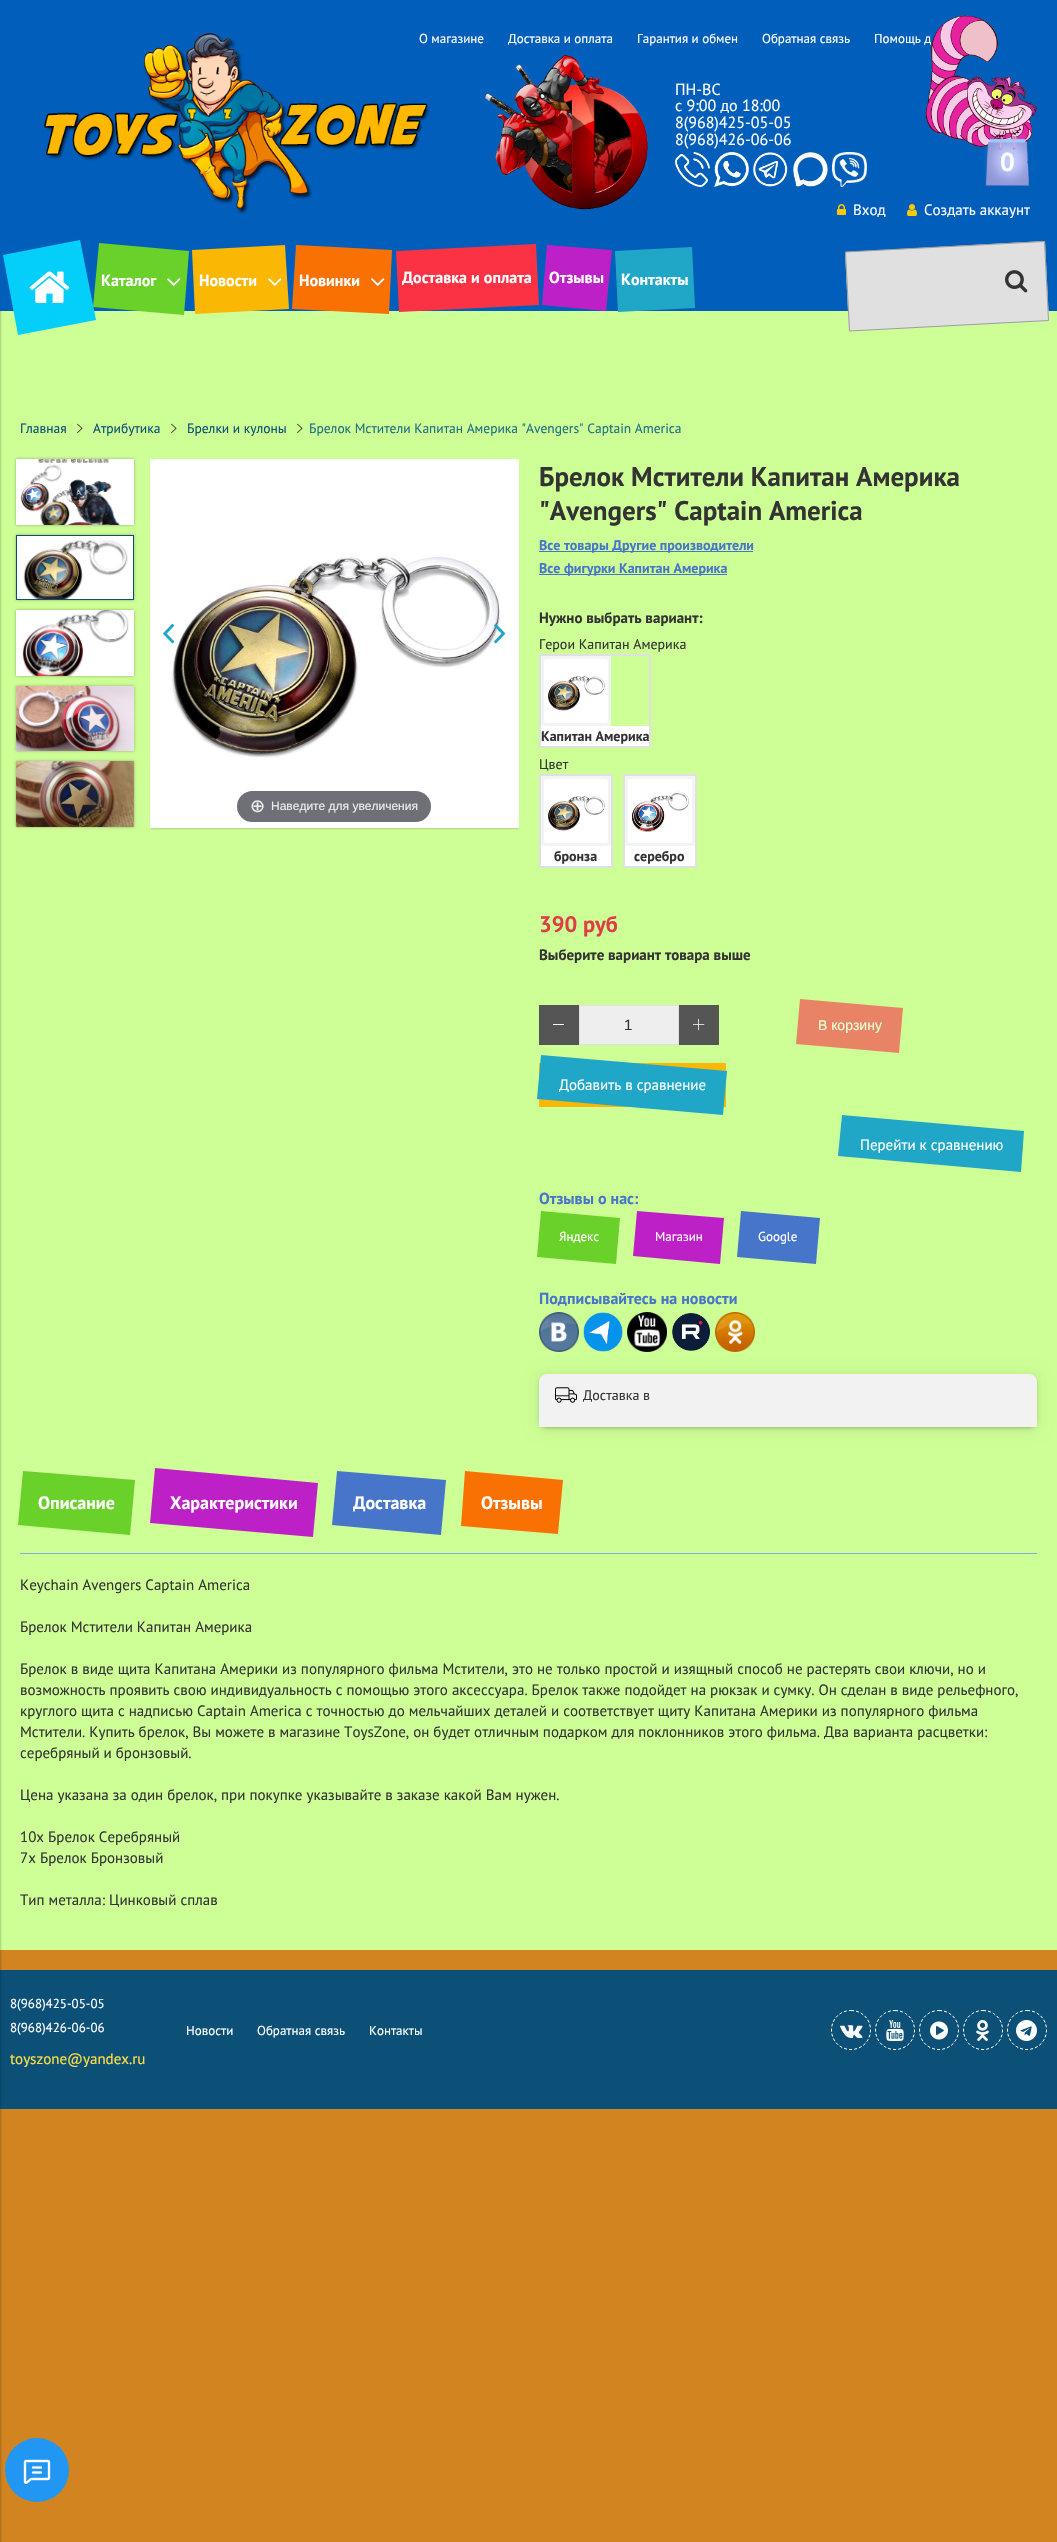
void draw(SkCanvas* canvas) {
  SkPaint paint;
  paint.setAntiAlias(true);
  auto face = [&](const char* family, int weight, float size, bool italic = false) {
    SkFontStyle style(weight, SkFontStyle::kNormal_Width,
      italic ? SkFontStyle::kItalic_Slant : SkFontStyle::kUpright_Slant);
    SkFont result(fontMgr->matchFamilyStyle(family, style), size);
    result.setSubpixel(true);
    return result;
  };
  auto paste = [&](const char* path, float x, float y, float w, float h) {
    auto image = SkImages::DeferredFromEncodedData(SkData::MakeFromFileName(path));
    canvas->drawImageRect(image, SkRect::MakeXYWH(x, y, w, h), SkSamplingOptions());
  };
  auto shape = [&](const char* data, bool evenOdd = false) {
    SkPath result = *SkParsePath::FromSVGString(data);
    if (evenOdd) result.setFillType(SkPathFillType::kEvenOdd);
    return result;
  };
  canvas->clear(0xffd1841f);
  paint.setColor(0xffceff96);
  canvas->drawRect(SkRect::MakeXYWH(0, 311, 1057, 1639), paint);
  paint.setColor(0xff0c5078);
  canvas->drawRect(SkRect::MakeXYWH(0, 1970, 1057, 139), paint);
  paint.setColor(0x66000000);
  paint.setMaskFilter(SkMaskFilter::MakeBlur(kNormal_SkBlurStyle, 1.5f));
  canvas->drawRect(SkRect::MakeXYWH(-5, 53, 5, 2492), paint);
  paint.setMaskFilter(nullptr);
  paint.setColor(0xff015eba);
  canvas->drawRect(SkRect::MakeXYWH(0, 0, 1057, 311), paint);
  paste("img/2.png", 484, 54, 164, 156);
  paste("img/3.png", 675, 152, 35, 35);
  paste("img/4.png", 714, 152, 35, 35);
  paste("img/5.png", 753, 152, 35, 35);
  paste("img/6.png", 793, 152, 35, 35);
  paste("img/7.png", 832, 152, 35, 35);
  paste("img/9.png", 837, 204, 9, 11);
  paste("img/10.png", 907, 204, 10, 12);
  paint.setColor(0xff04cffa);
  canvas->drawPath(shape("M3 255L80 240L96 320L18 335Z"), paint);
  paste("img/11.png", 29, 271, 41, 32);
  paint.setColor(0xff6ad12a);
  canvas->drawPath(shape("M99 243L189 251L184 315L93 307Z"), paint);
  paste("img/12.png", 167, 278, 14, 8);
  paint.setColor(0xfffab703);
  canvas->drawPath(shape("M192 250L285 245L289 309L195 314Z"), paint);
  paste("img/13.png", 268, 278, 14, 8);
  paint.setColor(0xfffa7103);
  canvas->drawPath(shape("M296 245L392 250L389 314L292 309Z"), paint);
  paste("img/14.png", 371, 278, 14, 8);
  paint.setColor(0xfffb3144);
  canvas->drawPath(shape("M396 251L536 244L539 305L399 312Z"), paint);
  paint.setColor(0xffbd20c7);
  canvas->drawPath(shape("M547 245L612 250L606 311L542 305Z"), paint);
  paint.setColor(0xff20a7c7);
  canvas->drawPath(shape("M615 251L692 247L695 308L618 312Z"), paint);
  paint.setColor(0xffe0e0e0);
  canvas->drawPath(shape("M845 252L1045 241L1049 321L849 331Z"), paint);
  paint.setStroke(true);
  paint.setStrokeWidth(1);
  paint.setColor(0xff9d9d9d);
  canvas->drawPath(shape("M845.5 252L1044.5 241.5L1048.5 320.5L849.5 331Z"), paint);
  paste("img/15.png", 1005, 270, 23, 23);
  paste("img/16.png", 77, 423, 6, 10);
  paste("img/16.png", 171, 423, 6, 10);
  paste("img/16.png", 297, 423, 6, 10);
  paint.setStroke(false);
  paint.setColor(0x4d000000);
  paint.setMaskFilter(SkMaskFilter::MakeBlur(kNormal_SkBlurStyle, 1.5f));
  canvas->drawRect(SkRect::MakeXYWH(16, 459, 118, 66), paint);
  paint.setMaskFilter(nullptr);
  paste("img/17.png", 16, 459, 118, 66);
  paint.setMaskFilter(SkMaskFilter::MakeBlur(kNormal_SkBlurStyle, 1.5f));
  canvas->drawRect(SkRect::MakeXYWH(16, 535, 118, 65), paint);
  paint.setMaskFilter(nullptr);
  paint.setStroke(true);
  paint.setColor(0xff0c5078);
  canvas->drawRect(SkRect::MakeXYWH(16.5f, 535.5f, 117, 64), paint);
  paste("img/18.png", 17, 536, 116, 63);
  paint.setStroke(false);
  paint.setColor(0x4d000000);
  paint.setMaskFilter(SkMaskFilter::MakeBlur(kNormal_SkBlurStyle, 1.5f));
  canvas->drawRect(SkRect::MakeXYWH(16, 610, 118, 66), paint);
  paint.setMaskFilter(nullptr);
  paste("img/19.png", 16, 610, 118, 66);
  paint.setMaskFilter(SkMaskFilter::MakeBlur(kNormal_SkBlurStyle, 1.5f));
  canvas->drawRect(SkRect::MakeXYWH(16, 686, 118, 65), paint);
  paint.setMaskFilter(nullptr);
  paste("img/20.png", 16, 686, 118, 65);
  paint.setMaskFilter(SkMaskFilter::MakeBlur(kNormal_SkBlurStyle, 1.5f));
  canvas->drawRect(SkRect::MakeXYWH(16, 761, 118, 66), paint);
  paint.setMaskFilter(nullptr);
  paste("img/21.png", 16, 761, 118, 66);
  canvas->save();
  canvas->clipRect(SkRect::MakeXYWH(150, 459, 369, 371));
  paint.setMaskFilter(SkMaskFilter::MakeBlur(kNormal_SkBlurStyle, 1.5f));
  canvas->drawRect(SkRect::MakeXYWH(150, 459, 369, 369), paint);
  paint.setMaskFilter(nullptr);
  canvas->restore();
  paste("img/24.png", 150, 459, 369, 369);
  paste("img/22.png", 163, 623, 12, 21);
  paste("img/23.png", 494, 623, 12, 21);
  paint.setColor(0xff6f7077);
  canvas->drawRoundRect(SkRect::MakeXYWH(237, 791, 194, 31), 15.5f, 15.5f, paint);
  paint.setColor(0xff4775c9);
  canvas->drawRect(SkRect::MakeXYWH(539, 551, 214, 1), paint);
  canvas->drawRect(SkRect::MakeXYWH(539, 574, 188, 1), paint);
  paint.setStroke(true);
  paint.setStrokeWidth(2);
  paint.setColor(0xffe0e0e0);
  canvas->drawRect(SkRect::MakeXYWH(540, 655, 110, 92), paint);
  paste("img/25.png", 541, 656, 70, 70);
  paste("img/26.png", 544, 659, 64, 64);
  paint.setStroke(false);
  paint.setColor(0xffffffff);
  canvas->drawRect(SkRect::MakeXYWH(541, 726, 108, 20), paint);
  paint.setStroke(true);
  paint.setColor(0xffe0e0e0);
  canvas->drawRect(SkRect::MakeXYWH(540, 775, 72, 92), paint);
  paste("img/25.png", 541, 776, 70, 70);
  paste("img/27.png", 544, 779, 64, 64);
  paint.setStroke(false);
  paint.setColor(0xffffffff);
  canvas->drawRect(SkRect::MakeXYWH(541, 846, 70, 20), paint);
  paint.setStroke(true);
  paint.setColor(0xffe0e0e0);
  canvas->drawRect(SkRect::MakeXYWH(624, 775, 72, 92), paint);
  paste("img/25.png", 625, 776, 70, 70);
  paste("img/28.png", 628, 779, 64, 64);
  paint.setStroke(false);
  {
    const struct { float x, y, w, h; SkColor color; } items[] = {
      {625, 846, 70, 20, 0xffffffff},
      {539, 1005, 40, 40, 0xff555555},
      {553, 1024, 11, 1, 0xffffffff},
    };
    for (auto [x, y, w, h, color] : items) {
      paint.setColor(color);
      canvas->drawRect(SkRect::MakeXYWH(x, y, w, h), paint);
    }
  }
  paint.setColor(0xffeeeeee);
  canvas->drawRect(SkRect::MakeXYWH(579.5f, 1005.5f, 99, 39), paint);
  paint.setStroke(true);
  paint.setStrokeWidth(1);
  paint.setColor(0xffe0e0e0);
  canvas->drawRect(SkRect::MakeXYWH(579.5f, 1005.5f, 99, 39), paint);
  paint.setStroke(false);
  paint.setColor(0xff555555);
  canvas->drawRect(SkRect::MakeXYWH(679, 1005, 40, 40), paint);
  paste("img/29.png", 693, 1018, 12, 13);
  paint.setColor(0xffe98365);
  canvas->drawPath(shape("M800 999L903 1008L899 1053L796 1044Z"), paint);
  paint.setColor(0xfffab703);
  canvas->drawRect(SkRect::MakeXYWH(539, 1063, 187, 44), paint);
  paint.setColor(0xff20a7c7);
  canvas->drawPath(shape("M541 1055L727 1071L723 1115L537 1099Z"), paint);
  paint.setColor(0xfffab703);
  canvas->drawRect(SkRect::MakeXYWH(840, 1135, 183, 16), paint);
  paint.setColor(0xff20a7c7);
  canvas->drawPath(shape("M842 1115L1024 1131L1021 1172L838 1156Z"), paint);
  paint.setColor(0xff6ad12a);
  canvas->drawPath(shape("M541 1211L620 1218L616 1264L537 1257Z"), paint);
  paint.setColor(0xffbd20c7);
  canvas->drawPath(shape("M637 1211L724 1218L720 1264L633 1256Z"), paint);
  paint.setColor(0xff4775c9);
  canvas->drawPath(shape("M741 1211L820 1218L816 1264L737 1257Z"), paint);
  paint.setColor(0x0d000000);
  paint.setMaskFilter(SkMaskFilter::MakeBlur(kNormal_SkBlurStyle, 8));
  canvas->drawRoundRect(SkRect::MakeXYWH(539, 1376, 498, 53), 8, 8, paint);
  paint.setMaskFilter(nullptr);
  paste("img/30.png", 539, 1312, 40, 40);
  paste("img/31.png", 583, 1312, 40, 40);
  paste("img/32.png", 627, 1312, 40, 40);
  paste("img/33.png", 672, 1313, 39, 38);
  paste("img/34.png", 715, 1312, 40, 40);
  paint.setMaskFilter(SkMaskFilter::MakeBlur(kNormal_SkBlurStyle, 4));
  canvas->drawRoundRect(SkRect::MakeXYWH(539, 1376, 498, 53), 8, 8, paint);
  paint.setMaskFilter(nullptr);
  paint.setMaskFilter(SkMaskFilter::MakeBlur(kNormal_SkBlurStyle, 2));
  canvas->drawRoundRect(SkRect::MakeXYWH(539, 1376, 498, 53), 8, 8, paint);
  paint.setMaskFilter(nullptr);
  paint.setMaskFilter(SkMaskFilter::MakeBlur(kNormal_SkBlurStyle, 1));
  canvas->drawRoundRect(SkRect::MakeXYWH(539, 1376, 498, 53), 8, 8, paint);
  paint.setMaskFilter(nullptr);
  paint.setMaskFilter(SkMaskFilter::MakeBlur(kNormal_SkBlurStyle, 0.5f));
  canvas->drawRoundRect(SkRect::MakeXYWH(539, 1375, 498, 53), 8, 8, paint);
  paint.setMaskFilter(nullptr);
  paint.setColor(0xfff2f2f2);
  canvas->drawPath(shape("M547 1374H1029C1033.5 1374 1037 1377.5 1037 1382V1427H539V1382C539 1377.5 542.5 1374 547 1374Z"), paint);
  paste("img/35.png", 555, 1387, 22, 16);
  paint.setColor(0xff80b2d9);
  canvas->drawRect(SkRect::MakeXYWH(20, 1553, 1017, 1), paint);
  paint.setColor(0xff6ad12a);
  canvas->drawPath(shape("M23 1471L135 1480L130 1535L18 1525Z"), paint);
  paint.setColor(0xffbd20c7);
  canvas->drawPath(shape("M155 1468L318 1483L313 1537L150 1523Z"), paint);
  paint.setColor(0xff4775c9);
  canvas->drawPath(shape("M337 1471L446 1480L441 1535L332 1525Z"), paint);
  paint.setColor(0xfffa7103);
  canvas->drawPath(shape("M465 1471L563 1480L558 1534L461 1526Z"), paint);
  paint.setStroke(true);
  paint.setColor(0xffffffff);
  paint.setPathEffect(SkDashPathEffect::Make({{3, 2}}, 0));
  canvas->drawPath(shape("M851 2010.5C862 2010.5 870.5 2019 870.5 2030C870.5 2041 862 2049.5 851 2049.5C840 2049.5 831.5 2041 831.5 2030C831.5 2019 840 2010.5 851 2010.5Z"), paint);
  paint.setPathEffect(nullptr);
  paste("img/36.png", 840, 2025, 23, 13);
  paint.setPathEffect(SkDashPathEffect::Make({{3, 2}}, 0));
  canvas->drawPath(shape("M895 2010.5C906 2010.5 914.5 2019 914.5 2030C914.5 2041 906 2049.5 895 2049.5C884 2049.5 875.5 2041 875.5 2030C875.5 2019 884 2010.5 895 2010.5Z"), paint);
  paint.setPathEffect(nullptr);
  paste("img/37.png", 886, 2020, 18, 21);
  paint.setPathEffect(SkDashPathEffect::Make({{3, 2}}, 0));
  canvas->drawPath(shape("M939 2010.5C950 2010.5 958.5 2019 958.5 2030C958.5 2041 950 2049.5 939 2049.5C928 2049.5 919.5 2041 919.5 2030C919.5 2019 928 2010.5 939 2010.5Z"), paint);
  paint.setPathEffect(nullptr);
  paste("img/38.png", 930, 2021, 18, 19);
  paint.setPathEffect(SkDashPathEffect::Make({{3, 2}}, 0));
  canvas->drawPath(shape("M983 2010.5C994 2010.5 1002.5 2019 1002.5 2030C1002.5 2041 994 2049.5 983 2049.5C972 2049.5 963.5 2041 963.5 2030C963.5 2019 972 2010.5 983 2010.5Z"), paint);
  paint.setPathEffect(nullptr);
  paste("img/39.png", 976, 2020, 13, 21);
  paint.setPathEffect(SkDashPathEffect::Make({{3, 2}}, 0));
  canvas->drawPath(shape("M1027 2010.5C1038 2010.5 1046.5 2019 1046.5 2030C1046.5 2041 1038 2049.5 1027 2049.5C1016 2049.5 1007.5 2041 1007.5 2030C1007.5 2019 1016 2010.5 1027 2010.5Z"), paint);
  paint.setPathEffect(nullptr);
  paste("img/40.png", 1016, 2020, 21, 21);
  paint.setStroke(false);
  paint.setColor(0xff2196f3);
  canvas->drawCircle(37, 2470, 32, paint);
  paste("img/41.png", 23, 2459, 28, 25);
  auto f0 = face("PT Sans", 400, 13);
  paint.setColor(0xffffffff);
  canvas->drawString("О магазине", 419, 43, f0, paint);
  paste("img/1.png", 43, 32, 387, 182);
  {
    const struct { const char* s; float x, y; } items[] = {
      {"Доставка и оплата", 508, 43},
      {"Гарантия и обмен", 637, 43},
      {"Обратная связь", 762, 43},
      {"Помощь д", 874, 43},
    };
    for (auto [s, x, y] : items) {
      canvas->drawString(s, x, y, f0, paint);
    }
  }
  auto f1 = face("PT Sans", 400, 16);
  {
    const struct { const char* s; float x, y; } items[] = {
      {"ПН-ВС", 675, 95},
      {"с 9:00 до 18:00", 675, 111},
      {"8(968)425-05-05", 675, 128},
      {"8(968)426-06-06", 675, 145},
    };
    for (auto [s, x, y] : items) {
      canvas->drawString(s, x, y, f1, paint);
    }
  }
  paste("img/8.png", 925, 15, 113, 173);
  auto f2 = face("PT Sans", 700, 26);
  canvas->drawString("0", 1000, 171, f2, paint);
  auto f3 = face("PT Sans", 400, 15);
  canvas->drawString("Вход", 853, 215, f3, paint);
  canvas->drawString("Создать аккаунт", 924, 215, f3, paint);
  auto f4 = face("PT Sans", 700, 16);
  {
    const struct { const char* s; float x, y; } items[] = {
      {"Каталог", 101, 286},
      {"Новости", 199, 286},
      {"Новинки", 299, 286},
      {"Доставка и оплата", 402, 283},
      {"Отзывы", 549, 283},
      {"Контакты", 621, 285},
    };
    for (auto [s, x, y] : items) {
      canvas->drawString(s, x, y, f4, paint);
    }
  }
  auto f5 = face("PT Sans", 400, 13.5f);
  paint.setColor(0xff0c5078);
  {
    const struct { const char* s; float x, y; } items[] = {
      {"Главная", 20, 433},
      {"Атрибутика", 93, 433},
      {"Брелки и кулоны", 187, 433},
    };
    for (auto [s, x, y] : items) {
      canvas->drawString(s, x, y, f5, paint);
    }
  }
  paint.setColor(0xff1f7085);
  canvas->drawString("Брелок Мстители Капитан Америка \"Avengers\" Captain America", 309, 433, f5, paint);
  auto f6 = face("DejaVu Sans", 400, 18);
  paint.setColor(0xffeeeeee);
  canvas->drawString("⊕", 250, 812, f6, paint);
  auto f7 = face("Liberation Sans", 400, 12);
  canvas->drawString("Наведите для увеличения", 271, 810, f7, paint);
  auto f8 = face("PT Sans", 700, 27);
  paint.setColor(0xff333333);
  canvas->drawString("Брелок Мстители Капитан Америка", 539, 486, f8, paint);
  canvas->drawString("\"Avengers\" Captain America", 539, 520, f8, paint);
  auto f9 = face("PT Sans", 700, 14);
  paint.setColor(0xff4775c9);
  canvas->drawString("Все товары Другие производители", 539, 550, f9, paint);
  canvas->drawString("Все фигурки Капитан Америка", 539, 573, f9, paint);
  auto f10 = face("PT Sans", 700, 15);
  paint.setColor(0xff333333);
  canvas->drawString("Нужно выбрать вариант:", 539, 623, f10, paint);
  auto f11 = face("PT Sans", 400, 14);
  canvas->drawString("Герои Капитан Америка", 539, 649, f11, paint);
  canvas->drawString("Капитан Америка", 541, 741, f9, paint);
  canvas->drawString("Цвет", 539, 769, f11, paint);
  canvas->drawString("бронза", 554, 861, f9, paint);
  canvas->drawString("серебро", 634, 861, f9, paint);
  auto f12 = face("PT Sans", 700, 22.5f);
  paint.setColor(0xffdd3f46);
  canvas->drawString("390 руб", 539, 932, f12, paint);
  paint.setColor(0xff333333);
  canvas->drawString("Выберите вариант товара выше", 539, 960, f10, paint);
  auto f13 = face("Liberation Sans", 400, 15);
  canvas->drawString("1", 624, 1030, f13, paint);
  auto f14 = face("Liberation Sans", 400, 14);
  paint.setColor(0xffebffd5);
  canvas->drawString("В корзину", 818, 1030, f14, paint);
  paint.setColor(0xffffffff);
  canvas->drawString("Добавить в сравнение", 559, 1090, f3, paint);
  canvas->drawString("Перейти к сравнению", 860, 1150, f3, paint);
  paint.setColor(0xff4775c9);
  canvas->drawString("Отзывы о нас:", 539, 1204, f4, paint);
  paint.setColor(0xffffffff);
  {
    const struct { const char* s; float x, y; } items[] = {
      {"Яндекс", 559, 1241},
      {"Магазин", 655, 1241},
      {"Google", 758, 1241},
    };
    for (auto [s, x, y] : items) {
      canvas->drawString(s, x, y, f0, paint);
    }
  }
  paint.setColor(0xff4775c9);
  canvas->drawString("Подписывайтесь на новости", 539, 1304, f4, paint);
  paint.setColor(0xff333333);
  canvas->drawString("Доставка в", 583, 1400, f11, paint);
  auto f15 = face("PT Sans", 700, 18);
  paint.setColor(0xffffffff);
  {
    const struct { const char* s; float x, y; } items[] = {
      {"Описание", 38, 1509},
      {"Характеристики", 170, 1509},
      {"Доставка", 353, 1509},
      {"Отзывы", 481, 1509},
    };
    for (auto [s, x, y] : items) {
      canvas->drawString(s, x, y, f15, paint);
    }
  }
  paint.setColor(0xff333333);
  {
    const struct { const char* s; float x, y; } items[] = {
      {"Keychain Avengers Captain America", 20, 1590},
      {"Брелок Мстители Капитан Америка", 20, 1632},
      {"Брелок в виде щита Капитана Америки из популярного фильма Мстители, это не только простой и изящный способ не растерять свои ключи, но и", 20, 1674},
      {"возможность проявить свою индивидуальность с помощью этого аксессуара. Брелок также подойдет на рюкзак и сумку. Он сделан в виде рельефного,", 20, 1695},
      {"круглого щита с надписью Captain America с точностью до мельчайших деталей и соответствует щиту Капитана Америки из популярного фильма", 20, 1716},
      {"Мстители. Купить брелок, Вы можете в магазине ToysZone, он будет отличным подарком для поклонников этого фильма. Два варианта расцветки:", 20, 1737},
      {"серебряный и бронзовый.", 20, 1758},
      {"Цена указана за один брелок, при покупке указывайте в заказе какой Вам нужен.", 20, 1800},
      {"10х Брелок Серебряный", 20, 1842},
      {"7х Брелок Бронзовый", 20, 1863},
      {"Тип металла: Цинковый сплав", 20, 1905},
    };
    for (auto [s, x, y] : items) {
      canvas->drawString(s, x, y, f3, paint);
    }
  }
  paint.setColor(0xffffffff);
  canvas->drawString("8(968)425-05-05", 10, 2008, f0, paint);
  canvas->drawString("8(968)426-06-06", 10, 2032, f0, paint);
  paint.setColor(0xffffe042);
  canvas->drawString("toyszone@yandex.ru", 10, 2064, f3, paint);
  paint.setColor(0xffffffff);
  {
    const struct { const char* s; float x, y; } items[] = {
      {"Новости", 186, 2035},
      {"Обратная связь", 257, 2035},
      {"Контакты", 369, 2035},
    };
    for (auto [s, x, y] : items) {
      canvas->drawString(s, x, y, f0, paint);
    }
  }
}
